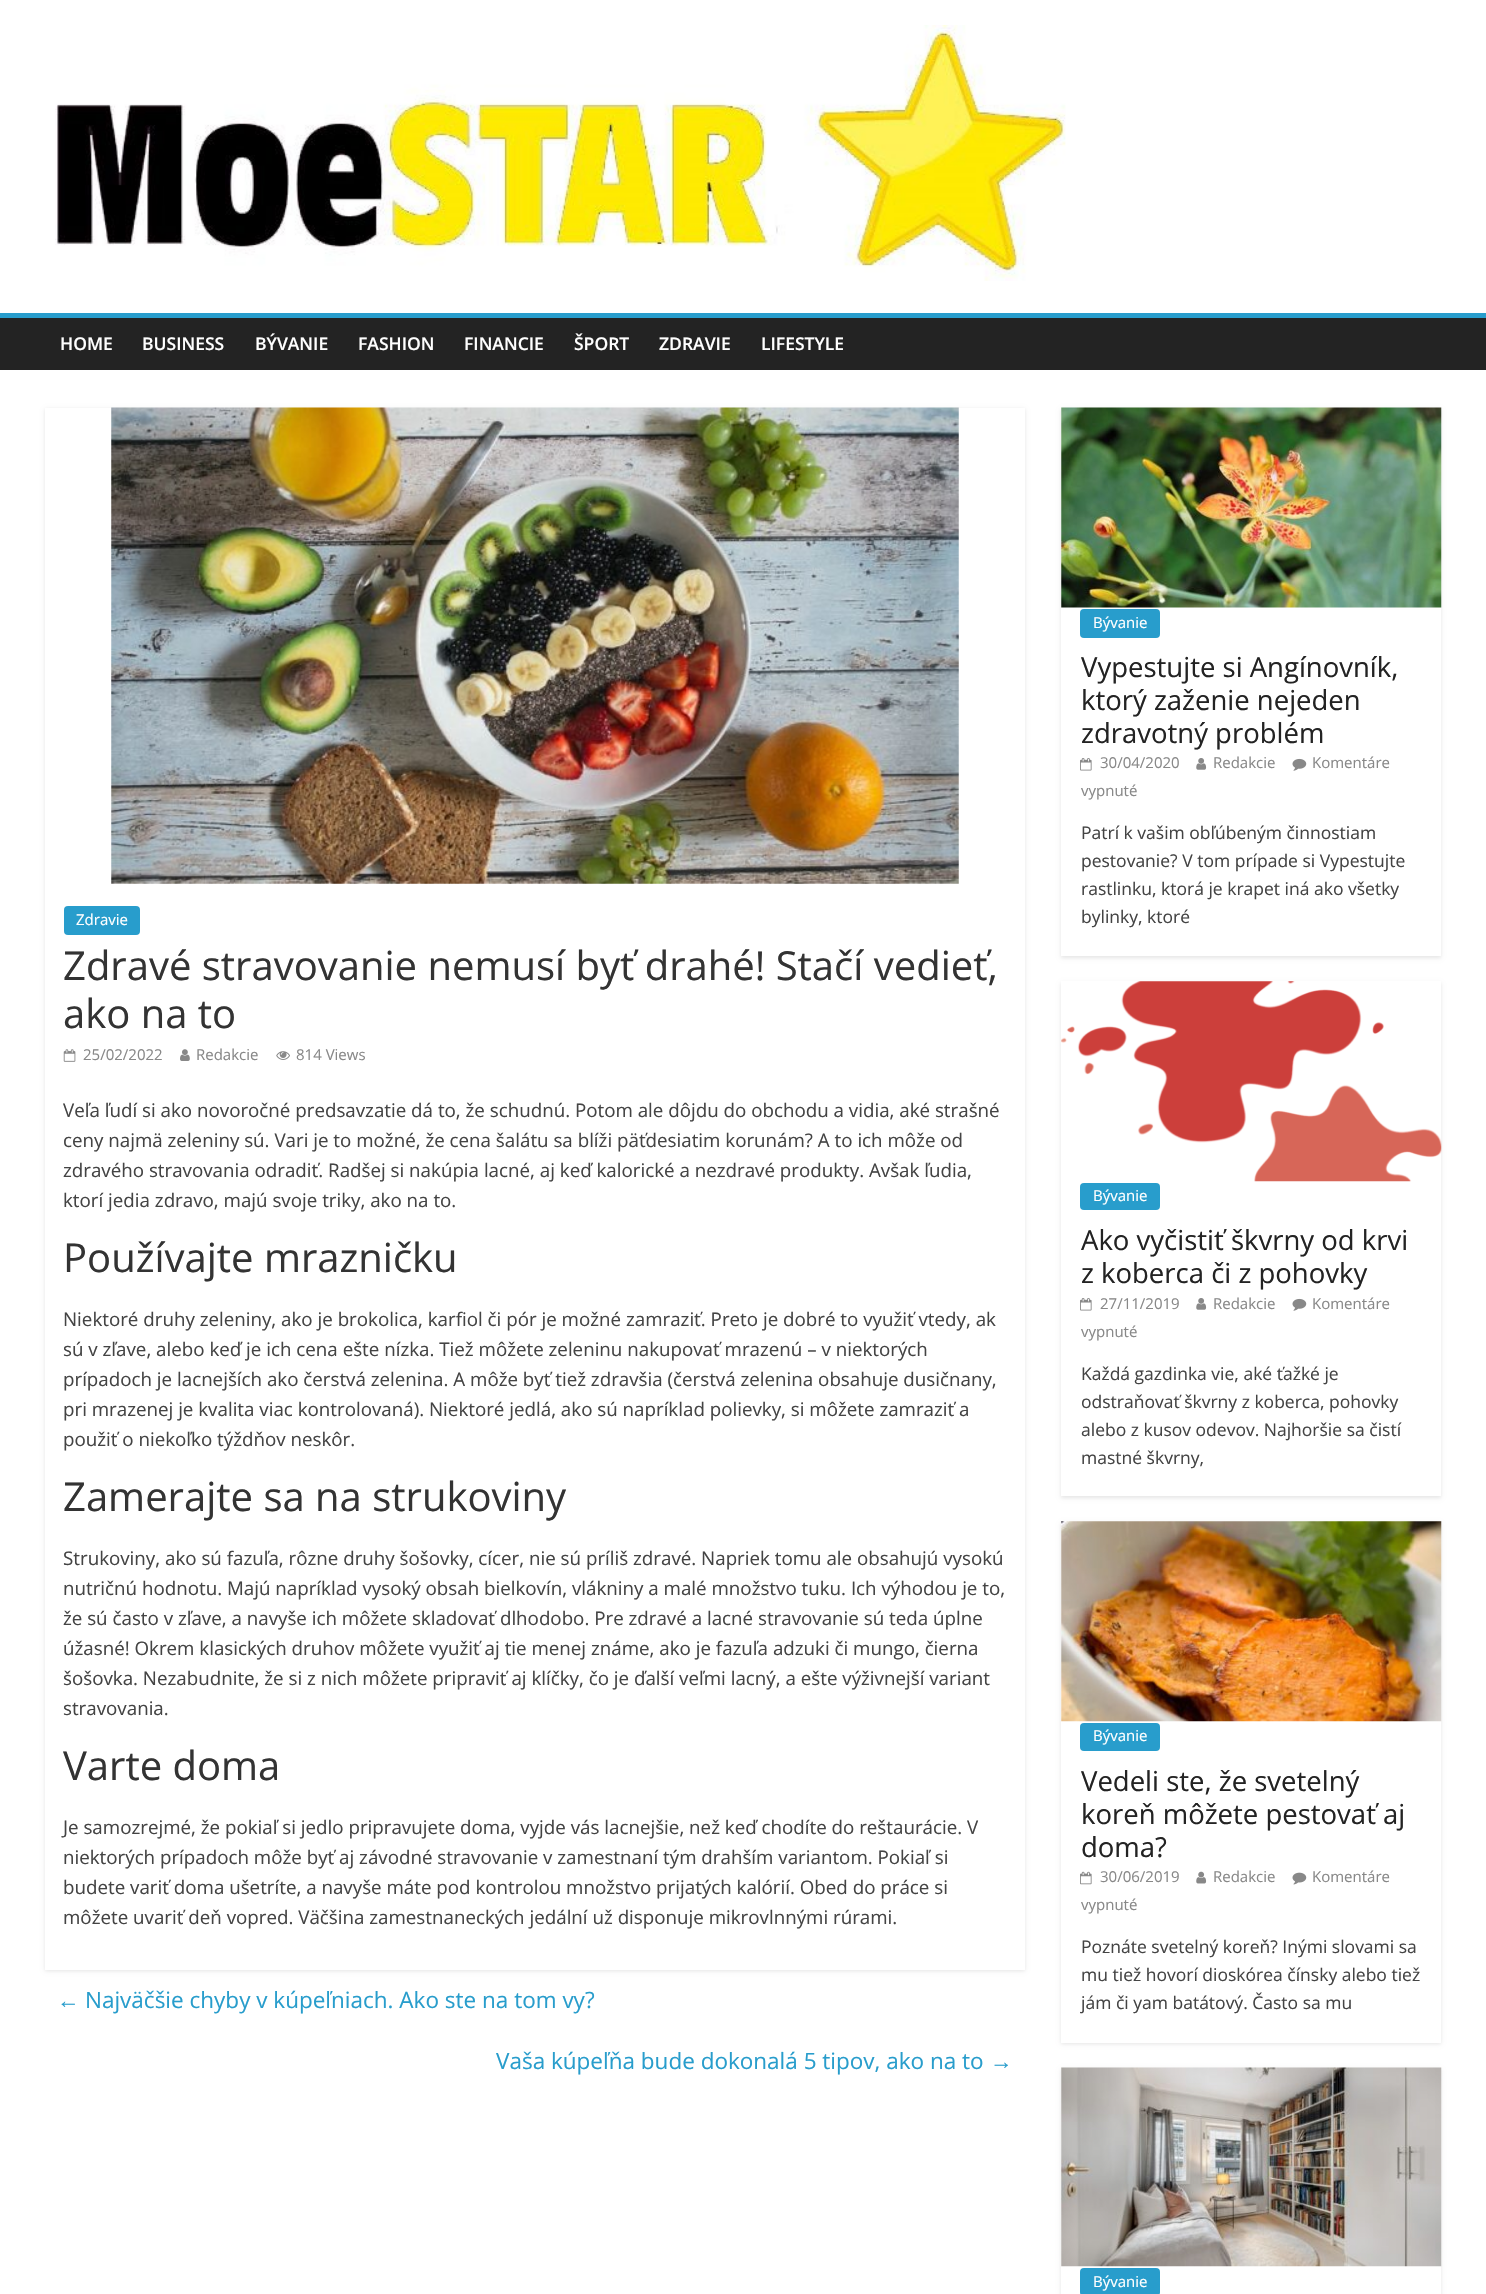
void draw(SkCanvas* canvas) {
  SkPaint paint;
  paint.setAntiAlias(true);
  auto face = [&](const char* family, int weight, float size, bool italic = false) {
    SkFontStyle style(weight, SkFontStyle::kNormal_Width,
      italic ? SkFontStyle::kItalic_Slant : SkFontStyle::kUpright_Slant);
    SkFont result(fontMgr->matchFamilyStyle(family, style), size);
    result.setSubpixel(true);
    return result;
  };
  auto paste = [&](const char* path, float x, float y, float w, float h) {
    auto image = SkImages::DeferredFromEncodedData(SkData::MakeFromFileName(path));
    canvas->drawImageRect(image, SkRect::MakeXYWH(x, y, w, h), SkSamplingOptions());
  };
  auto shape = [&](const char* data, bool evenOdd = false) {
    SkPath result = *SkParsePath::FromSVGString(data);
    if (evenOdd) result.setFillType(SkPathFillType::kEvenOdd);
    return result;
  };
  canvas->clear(0xffffffff);
  paste("img/1.png", 55, 25, 1011, 256);
  paint.setColor(0xff232323);
  canvas->drawRect(SkRect::MakeXYWH(0, 318, 1486, 52), paint);
  paint.setColor(0xff289dcc);
  canvas->drawRect(SkRect::MakeXYWH(0, 313, 1486, 5), paint);
  canvas->save();
  canvas->clipPath(shape("M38 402H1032V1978H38ZM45 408H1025V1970H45Z", true), true);
  paint.setColor(0x1a000000);
  paint.setMaskFilter(SkMaskFilter::MakeBlur(kNormal_SkBlurStyle, 2));
  canvas->drawRect(SkRect::MakeXYWH(45, 409, 980, 1562), paint);
  paint.setMaskFilter(nullptr);
  canvas->restore();
  paste("img/2.png", 111, 407, 848, 477);
  paint.setColor(0xff289dcc);
  canvas->drawRoundRect(SkRect::MakeXYWH(64, 906, 76, 29), 4, 4, paint);
  paste("img/3.png", 63, 1049, 13, 13);
  paste("img/4.png", 180, 1049, 10, 12);
  paste("img/5.png", 276, 1051, 14, 9);
  canvas->save();
  canvas->clipPath(shape("M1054 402H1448V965H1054ZM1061 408H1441V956H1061Z", true), true);
  paint.setColor(0x1a000000);
  paint.setMaskFilter(SkMaskFilter::MakeBlur(kNormal_SkBlurStyle, 2));
  canvas->drawRect(SkRect::MakeXYWH(1061, 409, 380, 549), paint);
  paint.setMaskFilter(nullptr);
  canvas->restore();
  paste("img/6.png", 1061, 407, 381, 201);
  paint.setColor(0xff289dcc);
  canvas->drawRoundRect(SkRect::MakeXYWH(1080, 609, 80, 29), 4, 4, paint);
  paste("img/7.png", 1292, 758, 15, 13);
  paste("img/8.png", 1080, 758, 12, 13);
  paste("img/9.png", 1196, 758, 11, 12);
  canvas->save();
  canvas->clipPath(shape("M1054 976H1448V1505H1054ZM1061 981H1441V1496H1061Z", true), true);
  paint.setColor(0x1a000000);
  paint.setMaskFilter(SkMaskFilter::MakeBlur(kNormal_SkBlurStyle, 2));
  canvas->drawRect(SkRect::MakeXYWH(1061, 983, 380, 515), paint);
  paint.setMaskFilter(nullptr);
  canvas->restore();
  paste("img/10.png", 1061, 981, 381, 201);
  paint.setColor(0xff289dcc);
  canvas->drawRoundRect(SkRect::MakeXYWH(1080, 1183, 80, 27), 4, 4, paint);
  paste("img/7.png", 1292, 1298, 15, 13);
  paste("img/8.png", 1080, 1298, 12, 13);
  paste("img/9.png", 1196, 1298, 11, 12);
  canvas->save();
  canvas->clipPath(shape("M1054 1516H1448V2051H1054ZM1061 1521H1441V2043H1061Z", true), true);
  paint.setColor(0x1a000000);
  paint.setMaskFilter(SkMaskFilter::MakeBlur(kNormal_SkBlurStyle, 2));
  canvas->drawRect(SkRect::MakeXYWH(1061, 1523, 380, 521), paint);
  paint.setMaskFilter(nullptr);
  canvas->restore();
  paste("img/11.png", 1061, 1521, 381, 201);
  paint.setColor(0xff289dcc);
  canvas->drawRoundRect(SkRect::MakeXYWH(1080, 1723, 80, 28), 4, 4, paint);
  paste("img/12.png", 1292, 1872, 15, 13);
  paste("img/13.png", 1080, 1871, 12, 14);
  paste("img/14.png", 1196, 1871, 11, 13);
  canvas->save();
  canvas->clipPath(shape("M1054 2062H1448V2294H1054ZM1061 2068H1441V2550H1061Z", true), true);
  paint.setColor(0x1a000000);
  paint.setMaskFilter(SkMaskFilter::MakeBlur(kNormal_SkBlurStyle, 2));
  canvas->drawRect(SkRect::MakeXYWH(1061, 2069, 380, 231), paint);
  paint.setMaskFilter(nullptr);
  canvas->restore();
  paste("img/15.png", 1061, 2067, 381, 200);
  paint.setColor(0xff289dcc);
  canvas->drawRoundRect(SkRect::MakeXYWH(1080, 2268, 80, 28), 4, 4, paint);
  auto f0 = face("Open Sans", 600, 17.5f);
  paint.setColor(0xffffffff);
  {
    const struct { const char* s; float x, y; } items[] = {
      {"HOME", 60, 350},
      {"BUSINESS", 142, 350},
      {"BÝVANIE", 255, 350},
      {"FASHION", 358, 350},
      {"FINANCIE", 464, 350},
      {"ŠPORT", 574, 350},
      {"ZDRAVIE", 659, 350},
      {"LIFESTYLE", 761, 350},
    };
    for (auto [s, x, y] : items) {
      canvas->drawString(s, x, y, f0, paint);
    }
  }
  auto f1 = face("Open Sans", 400, 15);
  canvas->drawString("Zdravie", 76, 925, f1, paint);
  auto f2 = face("Open Sans", 400, 40);
  paint.setColor(0xff333333);
  canvas->drawString("Zdravé stravovanie nemusí byť drahé! Stačí vedieť,", 63, 980, f2, paint);
  canvas->drawString("ako na to", 63, 1028, f2, paint);
  paint.setColor(0xff888888);
  {
    const struct { const char* s; float x, y; } items[] = {
      {"25/02/2022", 83, 1060},
      {"Redakcie", 196, 1060},
      {"814 Views", 296, 1060},
    };
    for (auto [s, x, y] : items) {
      canvas->drawString(s, x, y, f1, paint);
    }
  }
  auto f3 = face("Open Sans", 400, 18.75f);
  paint.setColor(0xff444444);
  {
    const struct { const char* s; float x, y; } items[] = {
      {"Veľa ľudí si ako novoročné predsavzatie dá to, že schudnú. Potom ale dôjdu do obchodu a vidia, aké strašné", 63, 1117},
      {"ceny najmä zeleniny sú. Vari je to možné, že cena šalátu sa blíži päťdesiatim korunám? A to ich môže od", 63, 1147},
      {"zdravého stravovania odradiť. Radšej si nakúpia lacné, aj keď kalorické a nezdravé produkty. Avšak ľudia,", 63, 1177},
      {"ktorí jedia zdravo, majú svoje triky, ako na to.", 63, 1207},
    };
    for (auto [s, x, y] : items) {
      canvas->drawString(s, x, y, f3, paint);
    }
  }
  paint.setColor(0xff333333);
  canvas->drawString("Používajte mrazničku", 63, 1272, f2, paint);
  paint.setColor(0xff444444);
  {
    const struct { const char* s; float x, y; } items[] = {
      {"Niektoré druhy zeleniny, ako je brokolica, karfiol či pór je možné zamraziť. Preto je dobré to využiť vtedy, ak", 63, 1326},
      {"sú v zľave, alebo keď je ich cena ešte nízka. Tiež môžete zeleninu nakupovať mrazenú – v niektorých", 63, 1356},
      {"prípadoch je lacnejších ako čerstvá zelenina. A môže byť tiež zdravšia (čerstvá zelenina obsahuje dusičnany,", 63, 1386},
      {"pri mrazenej je kvalita viac kontrolovaná). Niektoré jedlá, ako sú napríklad polievky, si môžete zamraziť a", 63, 1416},
      {"použiť o niekoľko týždňov neskôr.", 63, 1446},
    };
    for (auto [s, x, y] : items) {
      canvas->drawString(s, x, y, f3, paint);
    }
  }
  paint.setColor(0xff333333);
  canvas->drawString("Zamerajte sa na strukoviny", 63, 1511, f2, paint);
  paint.setColor(0xff444444);
  {
    const struct { const char* s; float x, y; } items[] = {
      {"Strukoviny, ako sú fazuľa, rôzne druhy šošovky, cícer, nie sú príliš zdravé. Napriek tomu ale obsahujú vysokú", 63, 1565},
      {"nutričnú hodnotu. Majú napríklad vysoký obsah bielkovín, vlákniny a malé množstvo tuku. Ich výhodou je to,", 63, 1595},
      {"že sú často v zľave, a navyše ich môžete skladovať dlhodobo. Pre zdravé a lacné stravovanie sú teda úplne", 63, 1625},
      {"úžasné! Okrem klasických druhov môžete využiť aj tie menej známe, ako je fazuľa adzuki či mungo, čierna", 63, 1655},
      {"šošovka. Nezabudnite, že si z nich môžete pripraviť aj klíčky, čo je ďalší veľmi lacný, a ešte výživnejší variant", 63, 1685},
      {"stravovania.", 63, 1715},
    };
    for (auto [s, x, y] : items) {
      canvas->drawString(s, x, y, f3, paint);
    }
  }
  paint.setColor(0xff333333);
  canvas->drawString("Varte doma", 63, 1780, f2, paint);
  paint.setColor(0xff444444);
  {
    const struct { const char* s; float x, y; } items[] = {
      {"Je samozrejmé, že pokiaľ si jedlo pripravujete doma, vyjde vás lacnejšie, než keď chodíte do reštaurácie. V", 63, 1834},
      {"niektorých prípadoch môže byť aj závodné stravovanie v zamestnaní tým drahším variantom. Pokiaľ si", 63, 1864},
      {"budete variť doma ušetríte, a navyše máte pod kontrolou množstvo prijatých kalórií. Obed do práce si", 63, 1894},
      {"môžete uvariť deň vopred. Väčšina zamestnaneckých jedální už disponuje mikrovlnnými rúrami.", 63, 1924},
    };
    for (auto [s, x, y] : items) {
      canvas->drawString(s, x, y, f3, paint);
    }
  }
  auto f4 = face("Liberation Serif", 400, 22.5f);
  paint.setColor(0xff289dcc);
  canvas->drawString("←", 57, 2008, f4, paint);
  auto f5 = face("Open Sans", 400, 22.5f);
  canvas->drawString("Najväčšie chyby v kúpeľniach. Ako ste na tom vy?", 85, 2008, f5, paint);
  canvas->drawString("Vaša kúpeľňa bude dokonalá 5 tipov, ako na to", 496, 2069, f5, paint);
  canvas->drawString("→", 990, 2069, f4, paint);
  paint.setColor(0xffffffff);
  canvas->drawString("Bývanie", 1093, 628, f1, paint);
  auto f6 = face("Open Sans", 400, 27.5f);
  paint.setColor(0xff232323);
  {
    const struct { const char* s; float x, y; } items[] = {
      {"Vypestujte si Angínovník,", 1081, 677},
      {"ktorý zaženie nejeden", 1081, 710},
      {"zdravotný problém", 1081, 743},
    };
    for (auto [s, x, y] : items) {
      canvas->drawString(s, x, y, f6, paint);
    }
  }
  paint.setColor(0xff888888);
  {
    const struct { const char* s; float x, y; } items[] = {
      {"Komentáre", 1312, 768},
      {"vypnuté", 1081, 796},
      {"30/04/2020", 1100, 768},
      {"Redakcie", 1213, 768},
    };
    for (auto [s, x, y] : items) {
      canvas->drawString(s, x, y, f1, paint);
    }
  }
  auto f7 = face("Open Sans", 400, 17.5f);
  paint.setColor(0xff444444);
  {
    const struct { const char* s; float x, y; } items[] = {
      {"Patrí k vašim obľúbeným činnostiam", 1081, 839},
      {"pestovanie? V tom prípade si Vypestujte", 1081, 867},
      {"rastlinku, ktorá je krapet iná ako všetky", 1081, 895},
      {"bylinky, ktoré", 1081, 923},
    };
    for (auto [s, x, y] : items) {
      canvas->drawString(s, x, y, f7, paint);
    }
  }
  paint.setColor(0xffffffff);
  canvas->drawString("Bývanie", 1093, 1201, f1, paint);
  paint.setColor(0xff232323);
  canvas->drawString("Ako vyčistiť škvrny od krvi", 1081, 1250, f6, paint);
  canvas->drawString("z koberca či z pohovky", 1081, 1283, f6, paint);
  paint.setColor(0xff888888);
  {
    const struct { const char* s; float x, y; } items[] = {
      {"Komentáre", 1312, 1309},
      {"vypnuté", 1081, 1337},
      {"27/11/2019", 1100, 1309},
      {"Redakcie", 1213, 1309},
    };
    for (auto [s, x, y] : items) {
      canvas->drawString(s, x, y, f1, paint);
    }
  }
  paint.setColor(0xff444444);
  {
    const struct { const char* s; float x, y; } items[] = {
      {"Každá gazdinka vie, aké ťažké je", 1081, 1380},
      {"odstraňovať škvrny z koberca, pohovky", 1081, 1408},
      {"alebo z kusov odevov. Najhoršie sa čistí", 1081, 1436},
      {"mastné škvrny,", 1081, 1464},
    };
    for (auto [s, x, y] : items) {
      canvas->drawString(s, x, y, f7, paint);
    }
  }
  paint.setColor(0xffffffff);
  canvas->drawString("Bývanie", 1093, 1741, f1, paint);
  paint.setColor(0xff232323);
  {
    const struct { const char* s; float x, y; } items[] = {
      {"Vedeli ste, že svetelný", 1081, 1791},
      {"koreň môžete pestovať aj", 1081, 1824},
      {"doma?", 1081, 1857},
    };
    for (auto [s, x, y] : items) {
      canvas->drawString(s, x, y, f6, paint);
    }
  }
  paint.setColor(0xff888888);
  {
    const struct { const char* s; float x, y; } items[] = {
      {"Komentáre", 1312, 1882},
      {"vypnuté", 1081, 1910},
      {"30/06/2019", 1100, 1882},
      {"Redakcie", 1213, 1882},
    };
    for (auto [s, x, y] : items) {
      canvas->drawString(s, x, y, f1, paint);
    }
  }
  paint.setColor(0xff444444);
  {
    const struct { const char* s; float x, y; } items[] = {
      {"Poznáte svetelný koreň? Inými slovami sa", 1081, 1953},
      {"mu tiež hovorí dioskórea čínsky alebo tiež", 1081, 1981},
      {"jám či yam batátový. Často sa mu", 1081, 2009},
    };
    for (auto [s, x, y] : items) {
      canvas->drawString(s, x, y, f7, paint);
    }
  }
  paint.setColor(0xffffffff);
  canvas->drawString("Bývanie", 1093, 2287, f1, paint);
}
